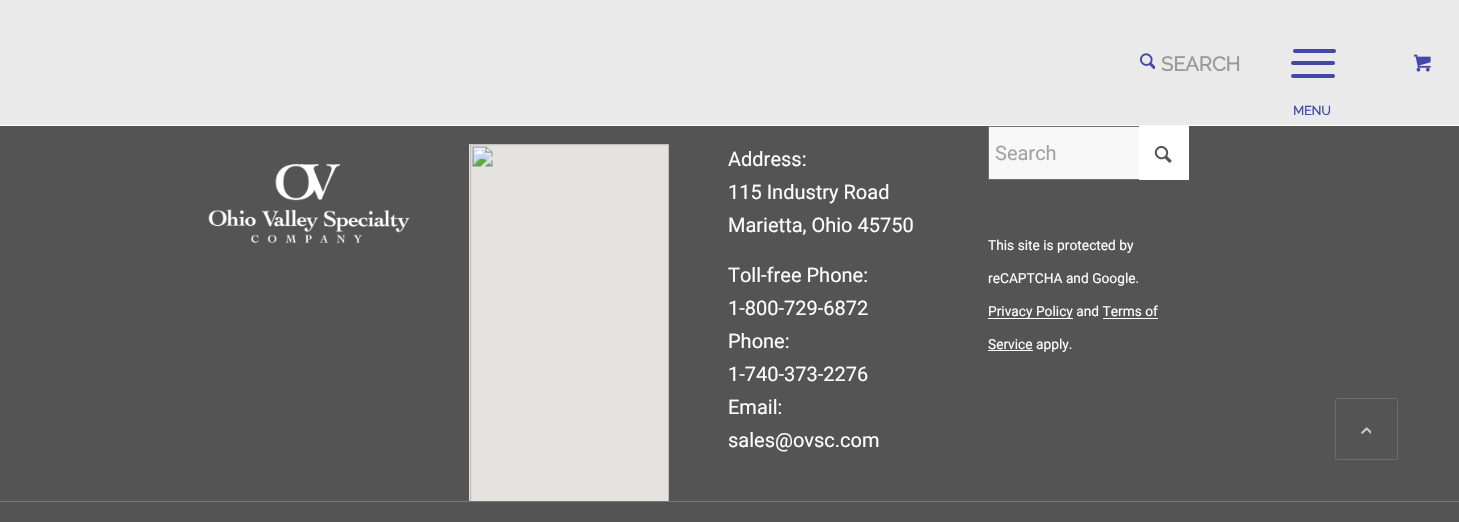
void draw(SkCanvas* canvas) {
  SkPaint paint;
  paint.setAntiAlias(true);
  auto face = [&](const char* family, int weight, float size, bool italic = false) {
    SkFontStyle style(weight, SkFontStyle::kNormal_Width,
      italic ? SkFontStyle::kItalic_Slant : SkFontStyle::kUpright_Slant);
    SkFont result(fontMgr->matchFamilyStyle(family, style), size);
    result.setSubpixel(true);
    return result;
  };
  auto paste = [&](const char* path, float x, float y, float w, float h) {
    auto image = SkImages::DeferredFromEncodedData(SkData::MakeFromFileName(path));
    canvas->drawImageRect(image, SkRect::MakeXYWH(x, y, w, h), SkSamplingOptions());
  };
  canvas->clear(0xff545454);
  paint.setColor(0xffeaeaea);
  canvas->drawRect(SkRect::MakeXYWH(0, 0, 1459, 125), paint);
  paste("img/1.png", 1140, 53, 15, 17);
  paint.setColor(0xff4548a8);
  canvas->drawRoundRect(SkRect::MakeXYWH(1291, 61, 44, 4), 2, 2, paint);
  canvas->drawRoundRect(SkRect::MakeXYWH(1291, 74, 44, 4), 2, 2, paint);
  canvas->drawRoundRect(SkRect::MakeXYWH(1293, 49, 43, 4), 2, 2, paint);
  paste("img/2.png", 1414, 54, 17, 18);
  paint.setColor(0xffffffff);
  canvas->drawRect(SkRect::MakeXYWH(0, 125, 1459, 1), paint);
  paste("img/3.png", 208, 164, 202, 79);
  paste("img/4.png", 469, 144, 200, 357);
  paint.setColor(0xfff8f8f8);
  canvas->drawRect(SkRect::MakeXYWH(989, 127, 150, 52), paint);
  paint.setStroke(true);
  paint.setStrokeWidth(1);
  paint.setColor(0xff6e6e6e);
  canvas->drawRect(SkRect::MakeXYWH(988.5f, 126.5f, 200, 53), paint);
  paint.setStroke(false);
  paint.setColor(0xffffffff);
  canvas->drawRect(SkRect::MakeXYWH(1139, 126, 50, 54), paint);
  paste("img/5.png", 1154, 146, 18, 17);
  {
    const struct { float x, y, w, h; SkColor color; } items[] = {
      {988, 318, 85, 1, 0xffffffff},
      {1103, 318, 55, 1, 0xffffffff},
      {988, 350, 45, 1, 0xffffffff},
      {0, 501, 1459, 1, 0xff787878},
    };
    for (auto [x, y, w, h, color] : items) {
      paint.setColor(color);
      canvas->drawRect(SkRect::MakeXYWH(x, y, w, h), paint);
    }
  }
  paint.setStroke(true);
  paint.setColor(0xff6d6d6d);
  canvas->drawRoundRect(SkRect::MakeXYWH(1335.5f, 398.5f, 62, 61), 2, 2, paint);
  paste("img/6.png", 1361, 427, 10, 7);
  auto f0 = face("Raleway", 700, 20);
  paint.setStroke(false);
  paint.setColor(0xff999999);
  canvas->drawString("SEARCH", 1161, 71, f0, paint);
  auto f1 = face("Raleway", 700, 12.5f);
  paint.setColor(0xff4548a8);
  canvas->drawString("MENU", 1293, 115, f1, paint);
  auto f2 = face("Roboto", 400, 20);
  paint.setColor(0xffffffff);
  {
    const struct { const char* s; float x, y; } items[] = {
      {"Address:", 728, 166},
      {"115 Industry Road", 728, 199},
      {"Marietta, Ohio 45750", 728, 232},
      {"Toll-free Phone:", 728, 282},
      {"1-800-729-6872", 728, 315},
      {"Phone:", 728, 348},
      {"1-740-373-2276", 728, 381},
      {"Email:", 728, 414},
      {"sales@ovsc.com", 728, 447},
    };
    for (auto [s, x, y] : items) {
      canvas->drawString(s, x, y, f2, paint);
    }
  }
  paint.setColor(0xffa3a3a3);
  canvas->drawString("Search", 995, 160, f2, paint);
  auto f3 = face("Roboto", 400, 13.75f);
  paint.setColor(0xffffffff);
  {
    const struct { const char* s; float x, y; } items[] = {
      {"This site is protected by", 988, 250},
      {"reCAPTCHA and Google.", 988, 283},
      {"Privacy Policy and Terms of", 988, 316},
      {"Service apply.", 988, 349},
    };
    for (auto [s, x, y] : items) {
      canvas->drawString(s, x, y, f3, paint);
    }
  }
}
